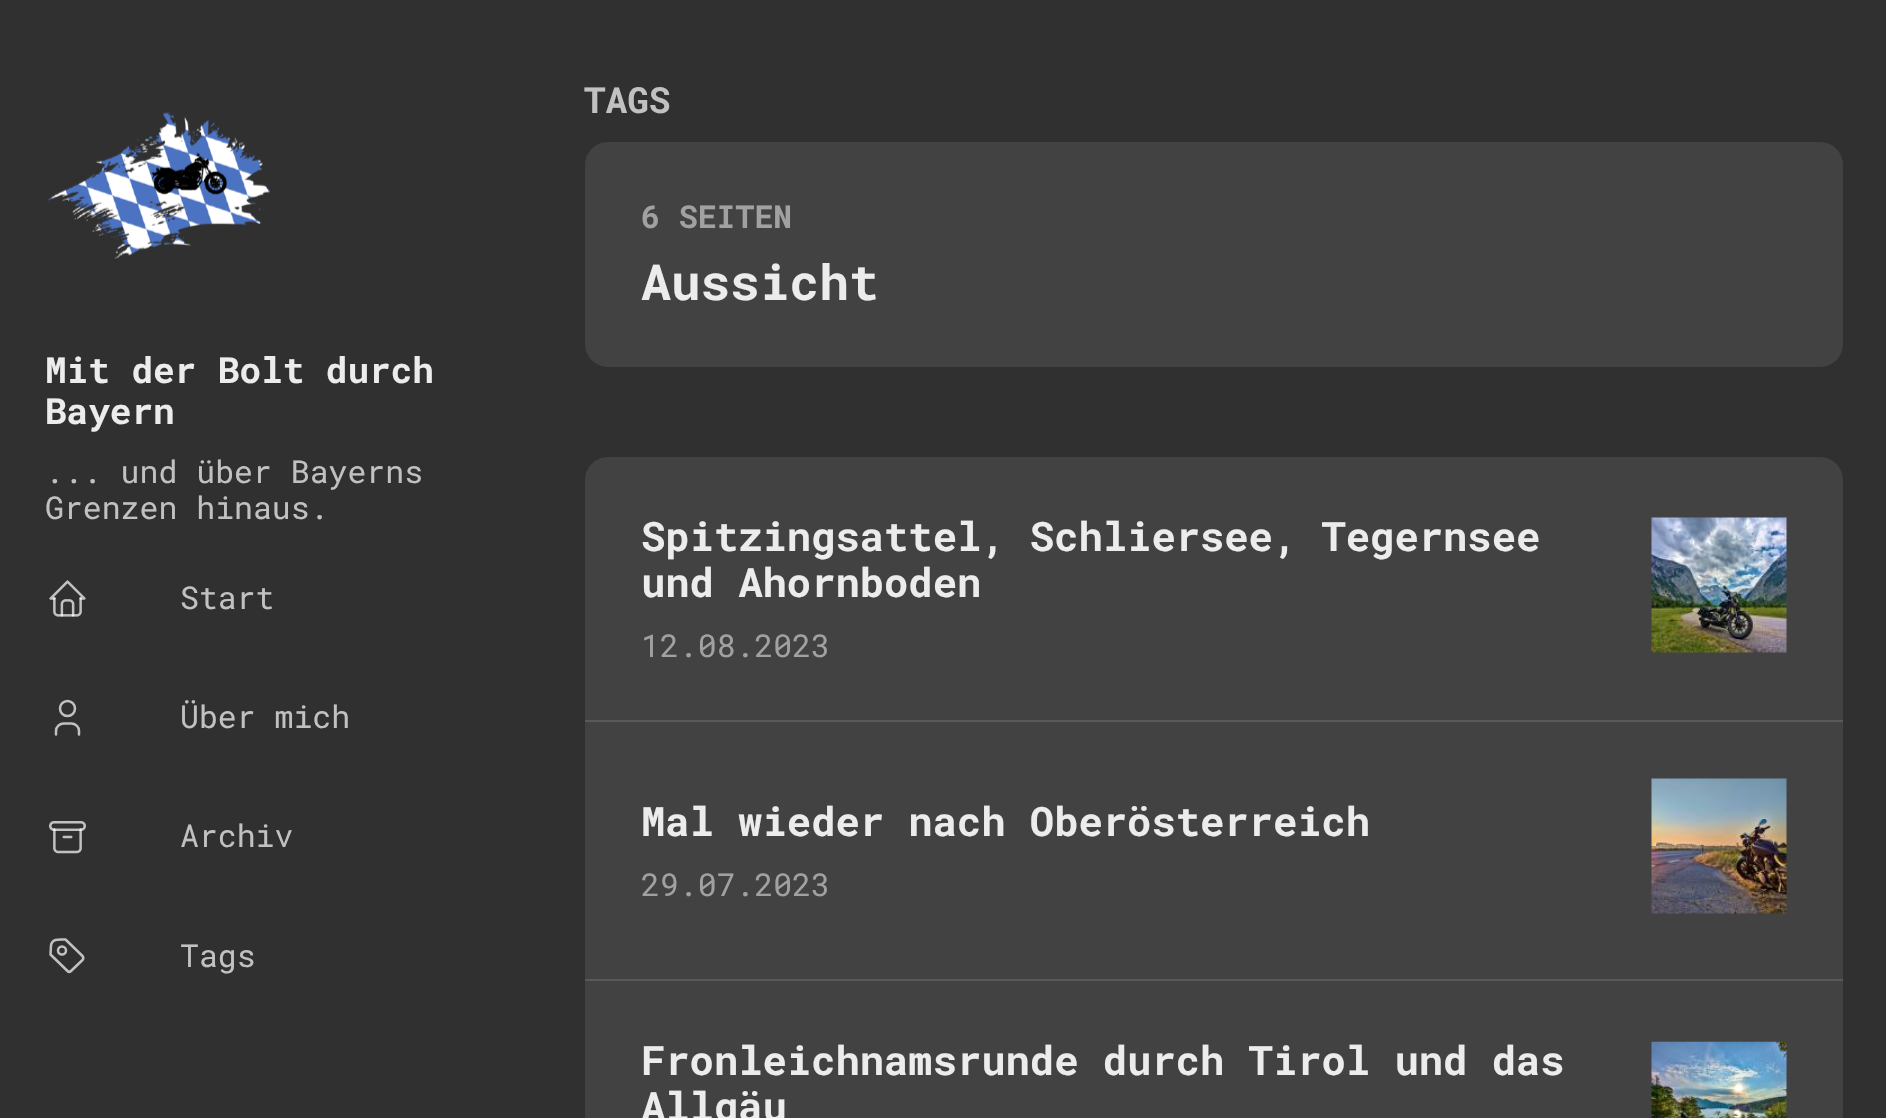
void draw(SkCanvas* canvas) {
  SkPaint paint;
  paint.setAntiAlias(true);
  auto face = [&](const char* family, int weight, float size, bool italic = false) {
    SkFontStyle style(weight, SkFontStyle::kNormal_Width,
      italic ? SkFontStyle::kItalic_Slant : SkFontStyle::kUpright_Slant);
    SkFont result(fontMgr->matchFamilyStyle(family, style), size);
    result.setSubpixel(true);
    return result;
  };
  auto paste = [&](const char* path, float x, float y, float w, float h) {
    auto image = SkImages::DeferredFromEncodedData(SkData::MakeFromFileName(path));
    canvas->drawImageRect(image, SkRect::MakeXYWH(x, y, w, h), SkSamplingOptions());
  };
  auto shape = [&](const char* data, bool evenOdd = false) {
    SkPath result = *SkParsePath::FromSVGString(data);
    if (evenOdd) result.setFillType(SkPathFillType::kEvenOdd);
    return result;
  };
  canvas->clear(0xff303030);
  paste("img/1.png", 47, 112, 223, 147);
  paste("img/2.png", 49, 580, 37, 37);
  paint.setStroke(true);
  paint.setStrokeWidth(2.5f);
  paint.setColor(0xffc1c1c1);
  canvas->drawCircle(67.5f, 708.5f, 7.5f, paint);
  paint.setStrokeCap(SkPaint::kRound_Cap);
  paint.setStrokeJoin(SkPaint::kRound_Join);
  canvas->drawPath(shape("M56 734.5V731C56 726.5 59.5 723.5 64 723.5H71C75.5 723.5 79 726.5 79 731V734.5"), paint);
  paste("img/3.png", 49, 821, 37, 33);
  canvas->drawPath(shape("M65.5 939.5L82.5 956C83.5 957.5 83.5 959 82.5 960L71 971C70 972 68.5 972 67.5 971L50.5 954.5L51 945.5C52 938 60 939.5 65.5 939.5"), paint);
  paint.setStrokeCap(SkPaint::kButt_Cap);
  paint.setStrokeJoin(SkPaint::kMiter_Join);
  canvas->drawCircle(62, 950.5f, 4, paint);
  paint.setStroke(false);
  paint.setColor(0xff424242);
  canvas->drawRoundRect(SkRect::MakeXYWH(585, 142, 1258, 225), 23, 23, paint);
  canvas->drawRoundRect(SkRect::MakeXYWH(585, 457, 1258, 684), 23, 23, paint);
  paint.setColor(0xff595959);
  canvas->drawRect(SkRect::MakeXYWH(585, 720, 1258, 2), paint);
  paste("img/4.png", 1651, 517, 136, 136);
  canvas->drawRect(SkRect::MakeXYWH(585, 979, 1258, 2), paint);
  paste("img/5.png", 1651, 778, 136, 136);
  paste("img/6.png", 1651, 1041, 136, 77);
  auto f0 = face("Roboto Mono", 700, 36);
  paint.setColor(0xffececec);
  canvas->drawString("Mit der Bolt durch", 45, 383, f0, paint);
  canvas->drawString("Bayern", 45, 424, f0, paint);
  auto f1 = face("Roboto Mono", 400, 31.5f);
  paint.setColor(0xffc1c1c1);
  {
    const struct { const char* s; float x, y; } items[] = {
      {"... und über Bayerns", 45, 483},
      {"Grenzen hinaus.", 45, 519},
      {"Start", 180, 609},
      {"Über mich", 180, 728},
      {"Archiv", 180, 847},
      {"Tags", 180, 967},
    };
    for (auto [s, x, y] : items) {
      canvas->drawString(s, x, y, f1, paint);
    }
  }
  canvas->drawString("TAGS", 584, 113, f0, paint);
  auto f2 = face("Roboto Mono", 700, 31.5f);
  paint.setColor(0xffa1a1a1);
  canvas->drawString("6 SEITEN", 641, 228, f2, paint);
  auto f3 = face("Roboto Mono", 700, 49.5f);
  paint.setColor(0xffececec);
  canvas->drawString("Aussicht", 641, 300, f3, paint);
  auto f4 = face("Roboto Mono", 700, 40.5f);
  canvas->drawString("Spitzingsattel, Schliersee, Tegernsee", 641, 551, f4, paint);
  canvas->drawString("und Ahornboden", 641, 597, f4, paint);
  paint.setColor(0xffa1a1a1);
  canvas->drawString("12.08.2023", 641, 657, f1, paint);
  paint.setColor(0xffececec);
  canvas->drawString("Mal wieder nach Oberösterreich", 641, 836, f4, paint);
  paint.setColor(0xffa1a1a1);
  canvas->drawString("29.07.2023", 641, 896, f1, paint);
  paint.setColor(0xffececec);
  canvas->drawString("Fronleichnamsrunde durch Tirol und das", 641, 1075, f4, paint);
  canvas->drawString("Allgäu", 641, 1121, f4, paint);
}
